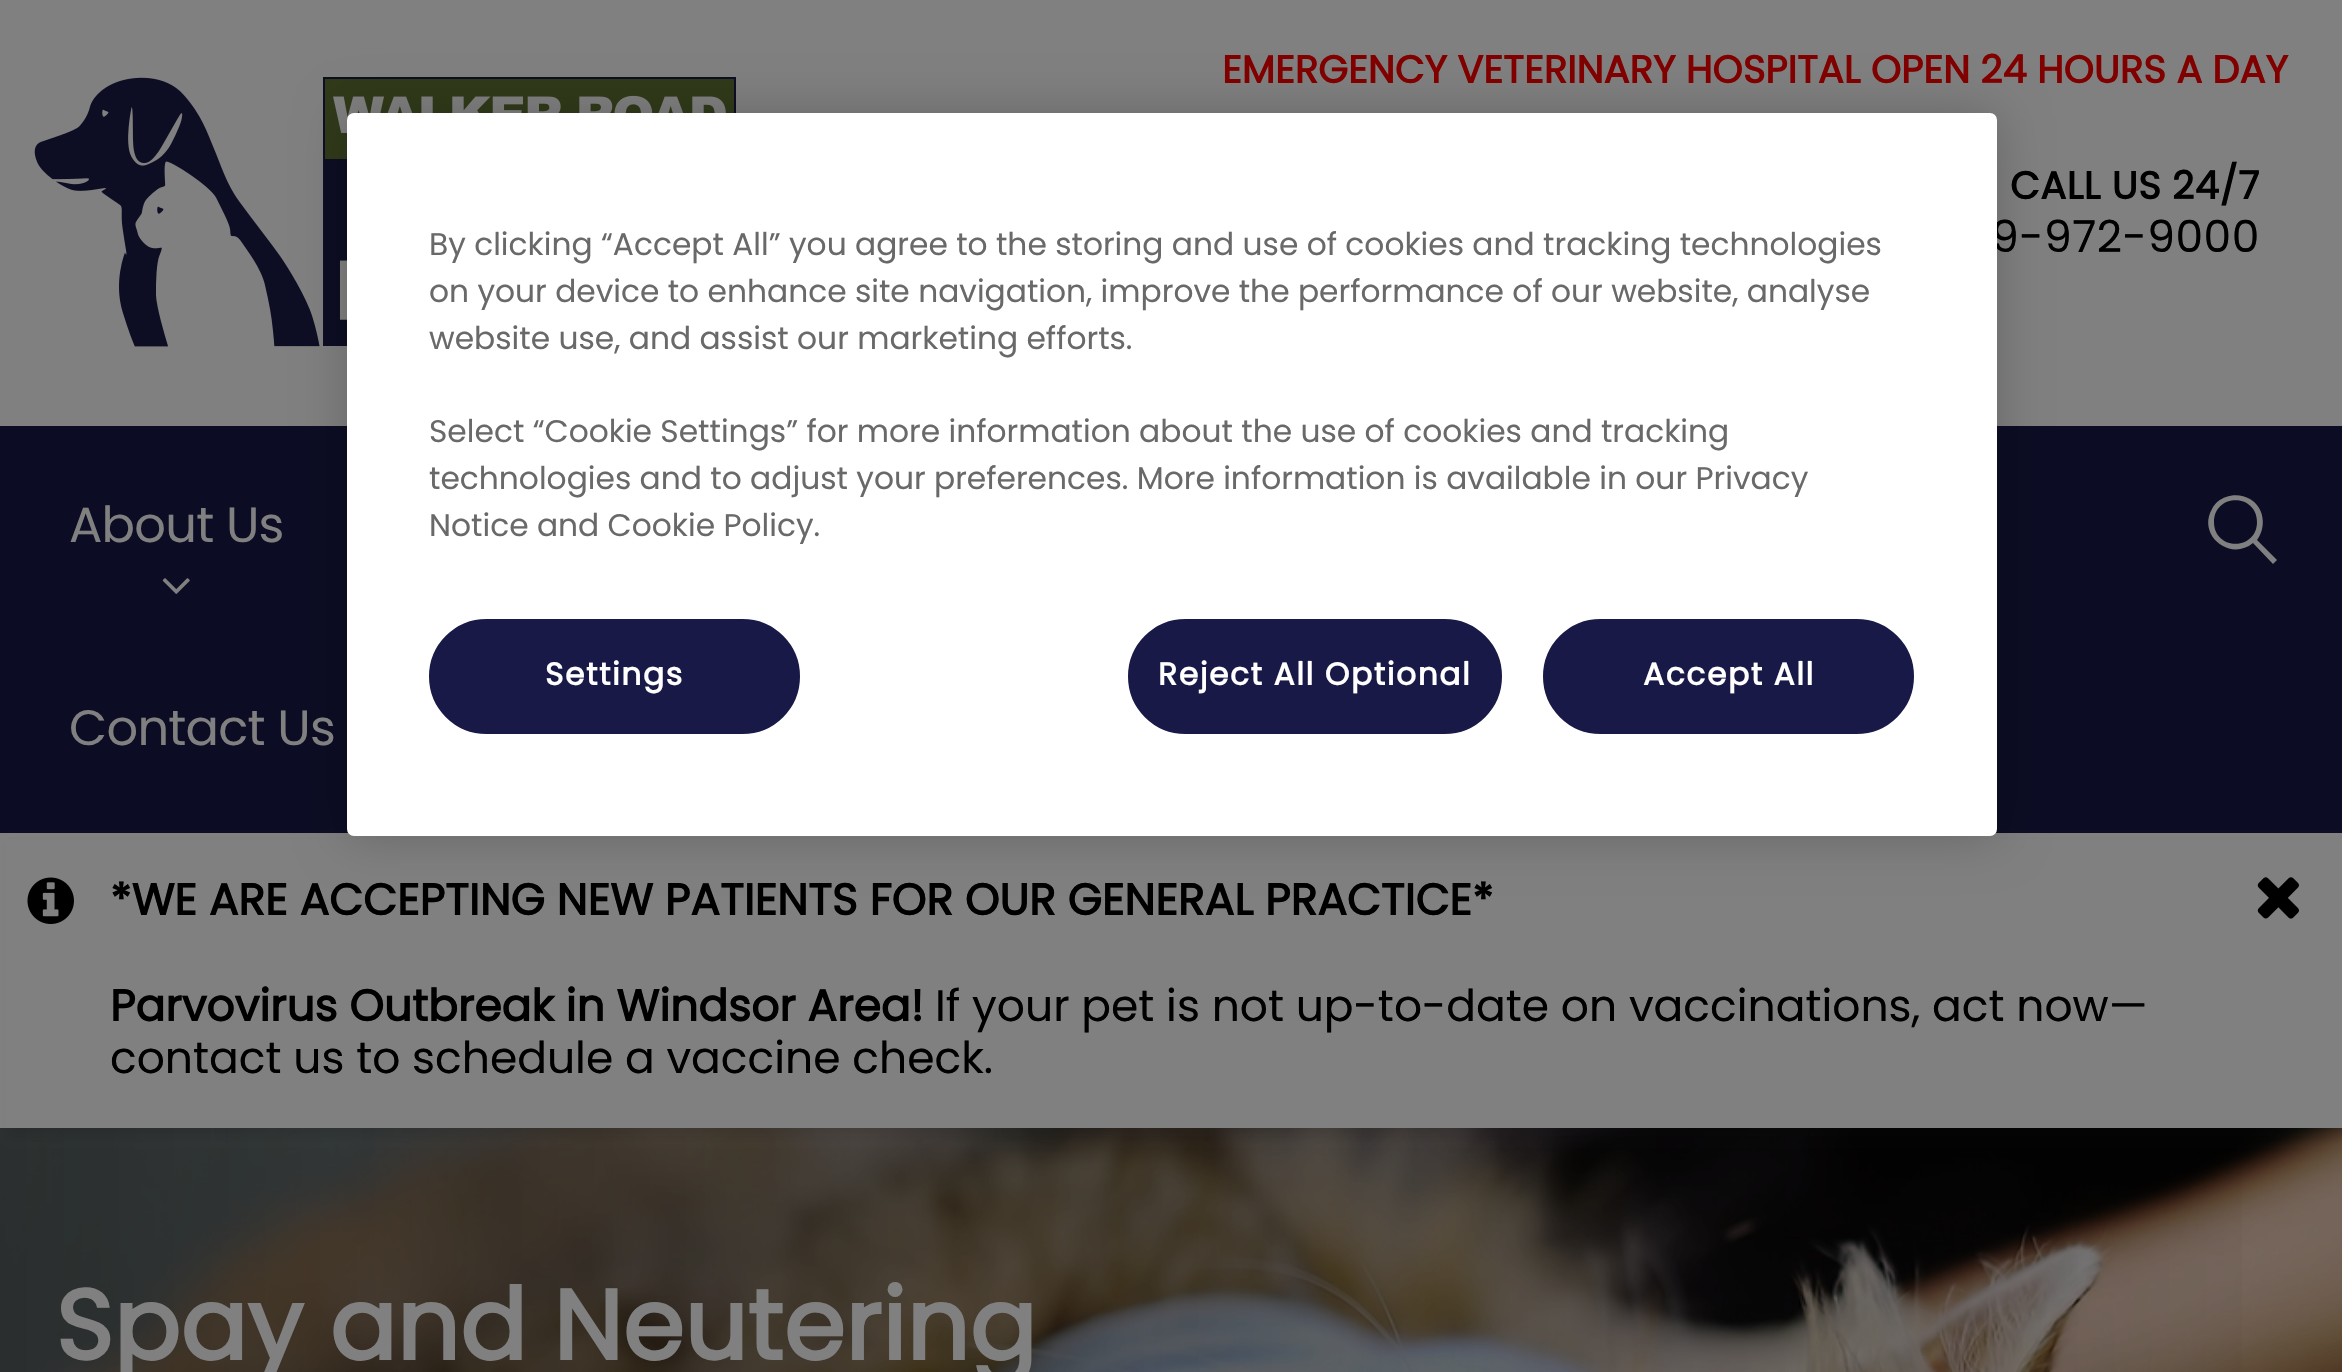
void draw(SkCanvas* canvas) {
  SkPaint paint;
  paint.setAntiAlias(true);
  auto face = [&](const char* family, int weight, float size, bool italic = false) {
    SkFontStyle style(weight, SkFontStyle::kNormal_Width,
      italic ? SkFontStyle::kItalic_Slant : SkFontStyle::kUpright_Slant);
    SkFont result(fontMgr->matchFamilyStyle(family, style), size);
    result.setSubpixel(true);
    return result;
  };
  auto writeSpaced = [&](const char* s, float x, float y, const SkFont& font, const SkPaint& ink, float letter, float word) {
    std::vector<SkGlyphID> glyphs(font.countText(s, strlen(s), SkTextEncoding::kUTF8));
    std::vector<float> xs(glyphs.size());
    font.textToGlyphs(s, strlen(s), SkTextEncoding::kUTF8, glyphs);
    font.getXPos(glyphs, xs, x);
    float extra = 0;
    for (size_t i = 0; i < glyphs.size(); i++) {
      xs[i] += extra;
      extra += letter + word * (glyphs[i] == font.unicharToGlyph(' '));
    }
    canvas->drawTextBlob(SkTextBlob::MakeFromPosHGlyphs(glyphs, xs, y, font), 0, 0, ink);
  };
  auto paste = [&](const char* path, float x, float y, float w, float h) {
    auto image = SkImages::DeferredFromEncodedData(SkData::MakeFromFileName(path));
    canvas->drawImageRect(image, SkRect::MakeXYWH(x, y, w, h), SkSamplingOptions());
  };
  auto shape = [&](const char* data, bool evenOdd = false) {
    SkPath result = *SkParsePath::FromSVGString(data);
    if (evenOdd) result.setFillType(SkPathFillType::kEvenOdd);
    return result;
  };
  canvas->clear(0xff808080);
  paste("img/1.png", 34, 77, 702, 270);
  paint.setColor(0xff0c0d24);
  canvas->drawRect(SkRect::MakeXYWH(0, 426, 2342, 407), paint);
  paste("img/2.png", 162, 578, 28, 16);
  paint.setColor(0xff808080);
  canvas->drawPath(shape("M2277 560L2257 540C2267 527 2264 507 2250 499C2243 495 2234 494 2226 497C2220 499 2215 503 2212 509C2197 535 2230 562 2253 543L2273 564ZM2214 522C2214 493 2257 493 2257 522C2257 551 2214 551 2214 522Z"), paint);
  paste("img/5.png", 0, 1128, 2342, 244);
  {
    const SkColor colors[] = {0x80000000, 0x00000000};
    const float stops[] = {0, 1};
    const SkPoint ends[] = {{0, 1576}, {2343, 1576}};
    paint.setShader(SkGradientShader::MakeLinear(ends, colors, stops, 2, SkTileMode::kClamp));
    paint.setAlpha(255);
  }
  canvas->drawRect(SkRect::MakeXYWH(0, 1128, 2242, 244), paint);
  paint.setShader(nullptr);
  paint.setColor(0x1a151313);
  paint.setMaskFilter(SkMaskFilter::MakeBlur(kNormal_SkBlurStyle, 4));
  canvas->drawRect(SkRect::MakeXYWH(8, 842, 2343, 294), paint);
  paint.setMaskFilter(nullptr);
  paint.setColor(0xff808080);
  canvas->drawRect(SkRect::MakeXYWH(5, 839, 2337, 289), paint);
  paste("img/3.png", 27, 877, 47, 47);
  paste("img/4.png", 2257, 877, 42, 42);
  paint.setColor(0x33000000);
  paint.setMaskFilter(SkMaskFilter::MakeBlur(kNormal_SkBlurStyle, 25));
  canvas->drawRoundRect(SkRect::MakeXYWH(347, 113, 1650, 723), 7, 7, paint);
  paint.setMaskFilter(nullptr);
  auto f0 = face("Poppins", 700, 38.5f);
  paint.setColor(0xff800000);
  canvas->drawString("EMERGENCY VETERINARY HOSPITAL OPEN 24 HOURS A DAY", 1222, 83, f0, paint);
  paint.setColor(0xff000000);
  writeSpaced("CALL US 24/7", 2010, 199, f0, paint, 0.5f, 0);
  auto f1 = face("Poppins", 400, 44);
  writeSpaced("9-972-9000", 1991, 252, f1, paint, 0.5f, 0);
  auto f2 = face("Poppins", 400, 49.5f);
  paint.setColor(0xff808080);
  writeSpaced("About Us", 69, 542, f2, paint, -0.75f, 0);
  writeSpaced("Contact Us", 69, 745, f2, paint, -0.75f, 0);
  auto f3 = face("Poppins", 700, 44);
  paint.setColor(0xff000000);
  canvas->drawString("*WE ARE ACCEPTING NEW PATIENTS FOR OUR GENERAL PRACTICE*", 110, 915, f3, paint);
  canvas->drawString("Parvovirus Outbreak in Windsor Area!", 110, 1021, f3, paint);
  canvas->drawString("If your pet is not up-to-date on vaccinations, act now—", 935, 1021, f1, paint);
  canvas->drawString("contact us to schedule a vaccine check.", 110, 1073, f1, paint);
  auto f4 = face("Poppins", 700, 99);
  paint.setColor(0xff808080);
  canvas->drawString("Spay and Neutering", 55, 1360, f4, paint);
  paint.setColor(0xffffffff);
  canvas->drawRoundRect(SkRect::MakeXYWH(347, 113, 1650, 723), 7, 7, paint);
  auto f5 = face("Poppins", 400, 31.3f);
  paint.setColor(0xff696969);
  {
    const struct { const char* s; float x, y; } items[] = {
      {"By clicking “Accept All” you agree to the storing and use of cookies and tracking technologies", 429, 255},
      {"on your device to enhance site navigation, improve the performance of our website, analyse", 429, 302},
      {"website use, and assist our marketing efforts.", 429, 349},
      {"Select “Cookie Settings” for more information about the use of cookies and tracking", 429, 442},
      {"technologies and to adjust your preferences. More information is available in our Privacy", 429, 489},
      {"Notice and Cookie Policy.", 429, 536},
    };
    for (auto [s, x, y] : items) {
      canvas->drawString(s, x, y, f5, paint);
    }
  }
  paint.setColor(0xff181947);
  canvas->drawRoundRect(SkRect::MakeXYWH(430.5f, 620.5f, 368, 112), 56, 56, paint);
  paint.setStroke(true);
  paint.setStrokeWidth(3);
  canvas->drawRoundRect(SkRect::MakeXYWH(430.5f, 620.5f, 368, 112), 56, 56, paint);
  auto f6 = face("Poppins", 700, 31.3f);
  paint.setStroke(false);
  paint.setColor(0xffffffff);
  writeSpaced("Settings", 545, 685, f6, paint, 1.6f, 0);
  paint.setColor(0xff181947);
  canvas->drawRoundRect(SkRect::MakeXYWH(1129.5f, 620.5f, 371, 112), 56, 56, paint);
  paint.setStroke(true);
  canvas->drawRoundRect(SkRect::MakeXYWH(1129.5f, 620.5f, 371, 112), 56, 56, paint);
  paint.setStroke(false);
  paint.setColor(0xffffffff);
  writeSpaced("Reject All Optional", 1158, 685, f6, paint, 1.6f, 0);
  paint.setColor(0xff181947);
  canvas->drawRoundRect(SkRect::MakeXYWH(1544.5f, 620.5f, 368, 112), 56, 56, paint);
  paint.setStroke(true);
  canvas->drawRoundRect(SkRect::MakeXYWH(1544.5f, 620.5f, 368, 112), 56, 56, paint);
  paint.setStroke(false);
  paint.setColor(0xffffffff);
  writeSpaced("Accept All", 1643, 685, f6, paint, 1.6f, 0);
}
